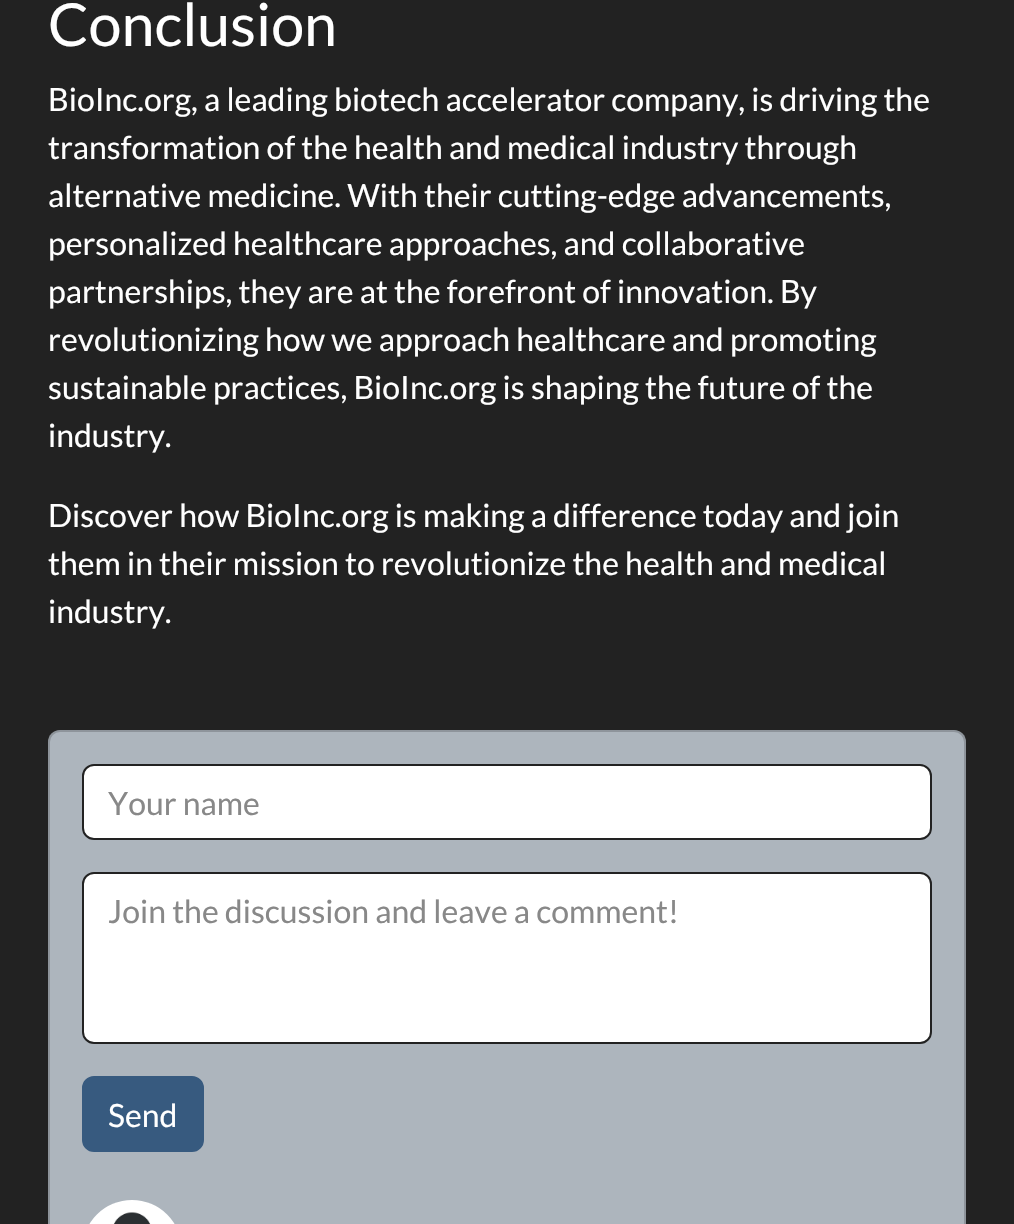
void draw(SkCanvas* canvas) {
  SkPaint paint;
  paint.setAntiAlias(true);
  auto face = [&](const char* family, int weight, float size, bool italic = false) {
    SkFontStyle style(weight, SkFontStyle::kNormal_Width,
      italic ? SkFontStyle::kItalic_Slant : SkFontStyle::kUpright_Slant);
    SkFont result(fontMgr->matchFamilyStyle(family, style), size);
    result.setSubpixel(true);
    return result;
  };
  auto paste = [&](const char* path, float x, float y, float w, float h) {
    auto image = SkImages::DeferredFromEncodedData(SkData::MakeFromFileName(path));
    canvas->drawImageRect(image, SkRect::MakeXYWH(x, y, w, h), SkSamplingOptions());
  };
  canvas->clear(0xff222222);
  paint.setColor(0xffadb5bd);
  canvas->drawRoundRect(SkRect::MakeXYWH(48, 730, 918, 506), 12, 12, paint);
  paint.setStroke(true);
  paint.setStrokeWidth(2);
  paint.setColor(0x2e000000);
  canvas->drawRoundRect(SkRect::MakeXYWH(49, 731, 916, 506), 11, 11, paint);
  paint.setStroke(false);
  paint.setColor(0xffffffff);
  canvas->drawRoundRect(SkRect::MakeXYWH(83, 765, 848, 74), 11, 11, paint);
  paint.setStroke(true);
  paint.setColor(0xff222222);
  canvas->drawRoundRect(SkRect::MakeXYWH(83, 765, 848, 74), 11, 11, paint);
  paint.setStroke(false);
  paint.setColor(0xffffffff);
  canvas->drawRoundRect(SkRect::MakeXYWH(83, 873, 848, 170), 11, 11, paint);
  paint.setStroke(true);
  paint.setColor(0xff222222);
  canvas->drawRoundRect(SkRect::MakeXYWH(83, 873, 848, 170), 11, 11, paint);
  paint.setStroke(false);
  paint.setColor(0xff375a7f);
  canvas->drawRoundRect(SkRect::MakeXYWH(83, 1077, 120, 74), 11, 11, paint);
  paint.setStroke(true);
  canvas->drawRoundRect(SkRect::MakeXYWH(83, 1077, 120, 74), 11, 11, paint);
  paste("img/1.png", 89, 1200, 86, 24);
  auto f0 = face("Lato", 400, 59.25f);
  paint.setStroke(false);
  paint.setColor(0xffffffff);
  canvas->drawString("Conclusion", 48, 46, f0, paint);
  auto f1 = face("Lato", 400, 32);
  {
    const struct { const char* s; float x, y; } items[] = {
      {"BioInc.org, a leading biotech accelerator company, is driving the", 48, 111},
      {"transformation of the health and medical industry through", 48, 159},
      {"alternative medicine. With their cutting-edge advancements,", 48, 207},
      {"personalized healthcare approaches, and collaborative", 48, 255},
      {"partnerships, they are at the forefront of innovation. By", 48, 303},
      {"revolutionizing how we approach healthcare and promoting", 48, 351},
      {"sustainable practices, BioInc.org is shaping the future of the", 48, 399},
      {"industry.", 48, 447},
      {"Discover how BioInc.org is making a difference today and join", 48, 527},
      {"them in their mission to revolutionize the health and medical", 48, 575},
      {"industry.", 48, 623},
    };
    for (auto [s, x, y] : items) {
      canvas->drawString(s, x, y, f1, paint);
    }
  }
  paint.setColor(0xff888888);
  canvas->drawString("Your name", 108, 815, f1, paint);
  canvas->drawString("Join the discussion and leave a comment!", 108, 923, f1, paint);
  paint.setColor(0xffffffff);
  canvas->drawString("Send", 108, 1127, f1, paint);
}
